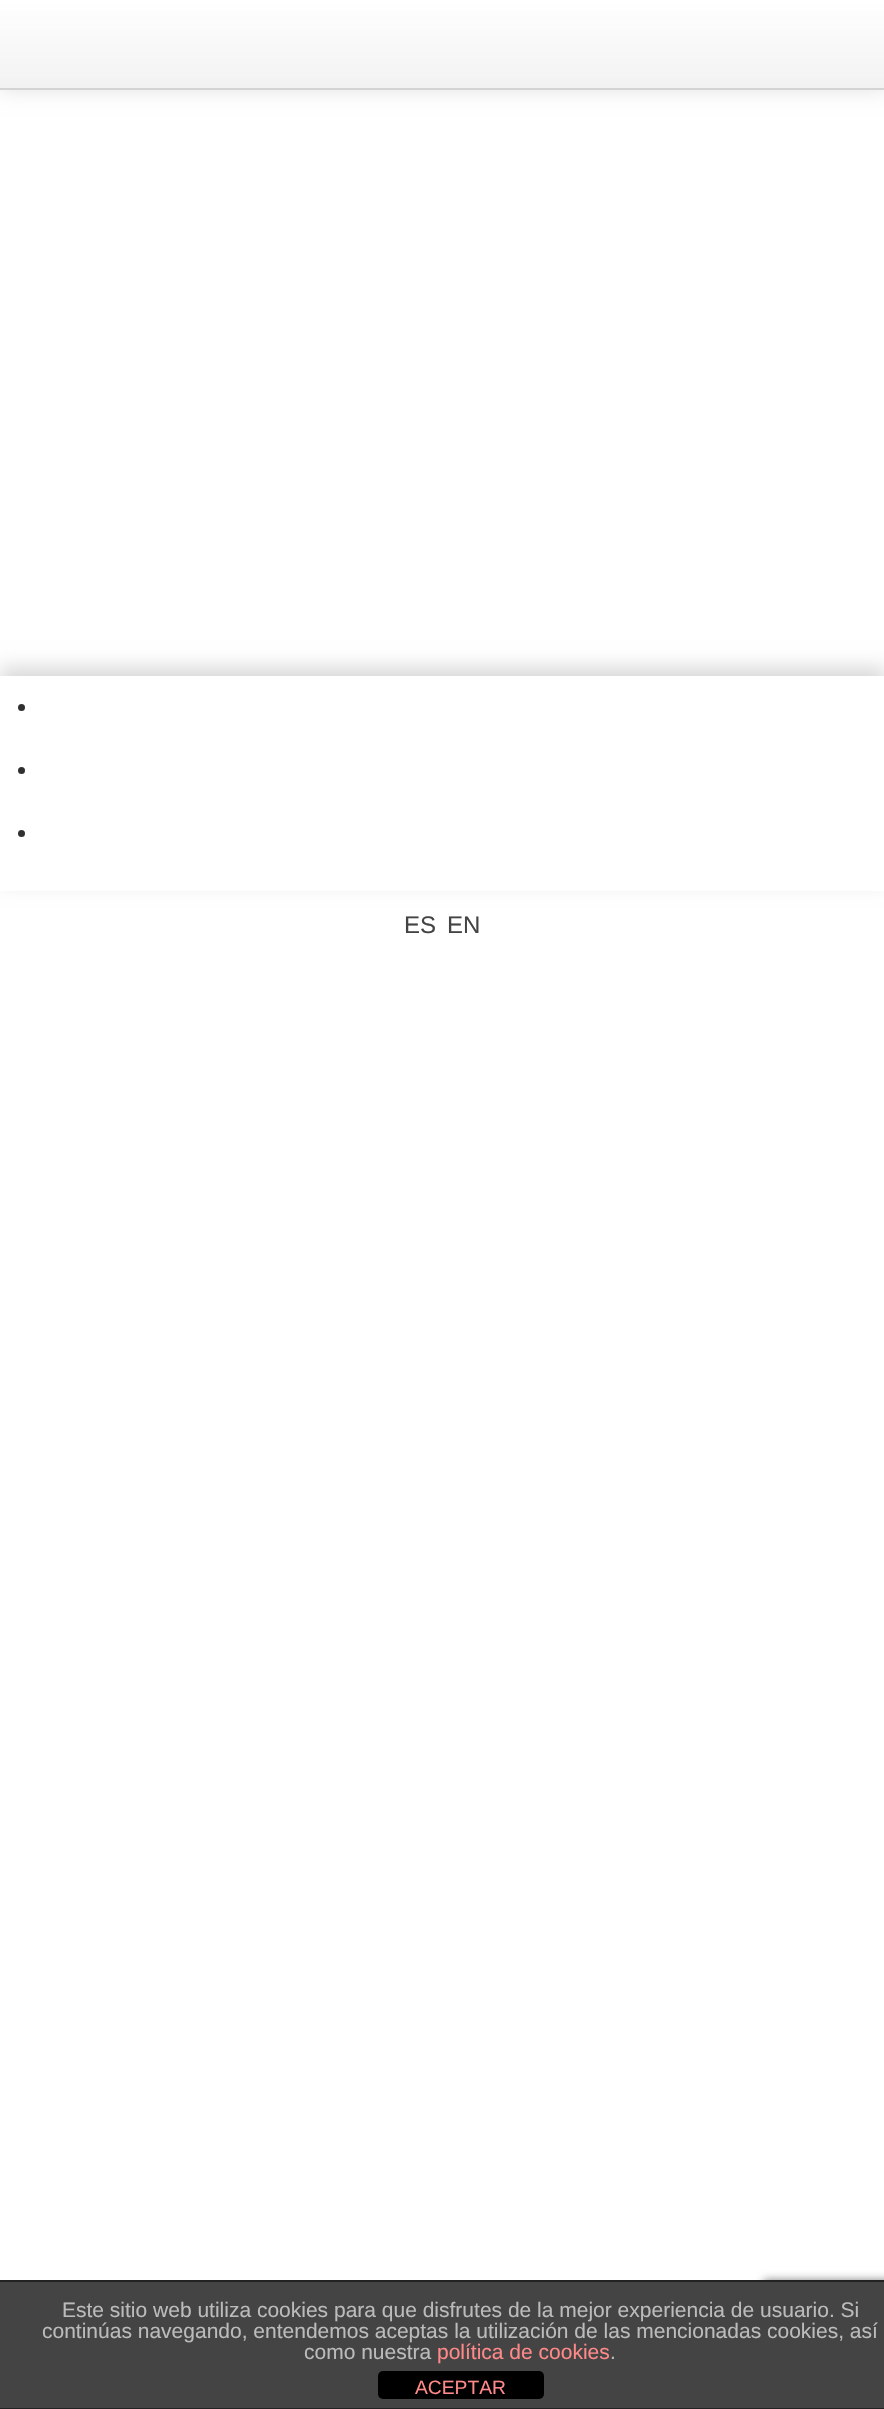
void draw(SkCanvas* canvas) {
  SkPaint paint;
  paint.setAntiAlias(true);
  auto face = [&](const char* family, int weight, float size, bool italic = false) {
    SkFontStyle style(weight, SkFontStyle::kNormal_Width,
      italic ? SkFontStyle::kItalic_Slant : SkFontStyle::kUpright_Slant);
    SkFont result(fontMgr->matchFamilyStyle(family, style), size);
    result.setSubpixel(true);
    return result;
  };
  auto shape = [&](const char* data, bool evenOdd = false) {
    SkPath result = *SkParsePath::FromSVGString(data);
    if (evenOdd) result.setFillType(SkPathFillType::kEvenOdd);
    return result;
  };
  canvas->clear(0xffffffff);
  paint.setColor(0x1a000000);
  paint.setMaskFilter(SkMaskFilter::MakeBlur(kNormal_SkBlurStyle, 9));
  canvas->drawRect(SkRect::MakeXYWH(0, 2, 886, 89), paint);
  paint.setMaskFilter(nullptr);
  {
    const SkColor colors[] = {0xffffffff, 0xfff2f2f2};
    const float stops[] = {0, 1};
    const SkPoint ends[] = {{443, 0}, {443, 88}};
    paint.setShader(SkGradientShader::MakeLinear(ends, colors, stops, 2, SkTileMode::kClamp));
    paint.setAlpha(255);
  }
  canvas->drawRect(SkRect::MakeXYWH(0, 0, 884, 88), paint);
  paint.setShader(nullptr);
  paint.setColor(0xffd4d4d4);
  canvas->drawRect(SkRect::MakeXYWH(0, 88, 884, 2), paint);
  canvas->save();
  canvas->clipPath(shape("M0 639H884V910H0ZM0 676H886V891H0Z", true), true);
  paint.setColor(0x26000000);
  paint.setMaskFilter(SkMaskFilter::MakeBlur(kNormal_SkBlurStyle, 9));
  canvas->drawRect(SkRect::MakeXYWH(0, 667, 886, 215), paint);
  paint.setMaskFilter(nullptr);
  canvas->restore();
  paint.setColor(0xff303030);
  canvas->drawCircle(21.5f, 707.5f, 3.5f, paint);
  canvas->drawCircle(21.5f, 770.5f, 3.5f, paint);
  canvas->drawCircle(21.5f, 833.5f, 3.5f, paint);
  paint.setColor(0xff808080);
  paint.setMaskFilter(SkMaskFilter::MakeBlur(kNormal_SkBlurStyle, 4.5f));
  canvas->drawRoundRect(SkRect::MakeXYWH(763, 2280, 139, 105), 4, 4, paint);
  paint.setMaskFilter(nullptr);
  {
    const struct { float x, y, w, h; SkColor color; } items[] = {
      {0, 2282, 884, 126, 0xff444444},
      {0, 2280, 884, 2, 0xff222222},
      {0, 2408, 884, 1, 0xff222222},
    };
    for (auto [x, y, w, h, color] : items) {
      paint.setColor(color);
      canvas->drawRect(SkRect::MakeXYWH(x, y, w, h), paint);
    }
  }
  paint.setColor(0xff000000);
  canvas->drawRoundRect(SkRect::MakeXYWH(378, 2371, 166, 28), 5, 5, paint);
  auto f0 = face("Liberation Sans", 400, 24);
  paint.setColor(0xff444444);
  canvas->drawString("ES", 404, 933, f0, paint);
  canvas->drawString("EN", 447, 933, f0, paint);
  auto f1 = face("Liberation Sans", 400, 21);
  paint.setColor(0xffbbbbbb);
  {
    const struct { const char* s; float x, y; } items[] = {
      {"Este sitio web utiliza cookies para que disfrutes de la mejor experiencia de usuario. Si", 62, 2317},
      {"continúas navegando, entendemos aceptas la utilización de las mencionadas cookies, así", 42, 2338},
      {"como nuestra", 304, 2359},
    };
    for (auto [s, x, y] : items) {
      canvas->drawString(s, x, y, f1, paint);
    }
  }
  paint.setColor(0xffff8888);
  canvas->drawString("política de cookies", 437, 2359, f1, paint);
  paint.setColor(0xffbbbbbb);
  canvas->drawString(".", 610, 2359, f1, paint);
  auto f2 = face("Liberation Sans", 400, 19.25f);
  paint.setColor(0xffff8888);
  canvas->drawString("ACEPTAR", 415, 2394, f2, paint);
}
